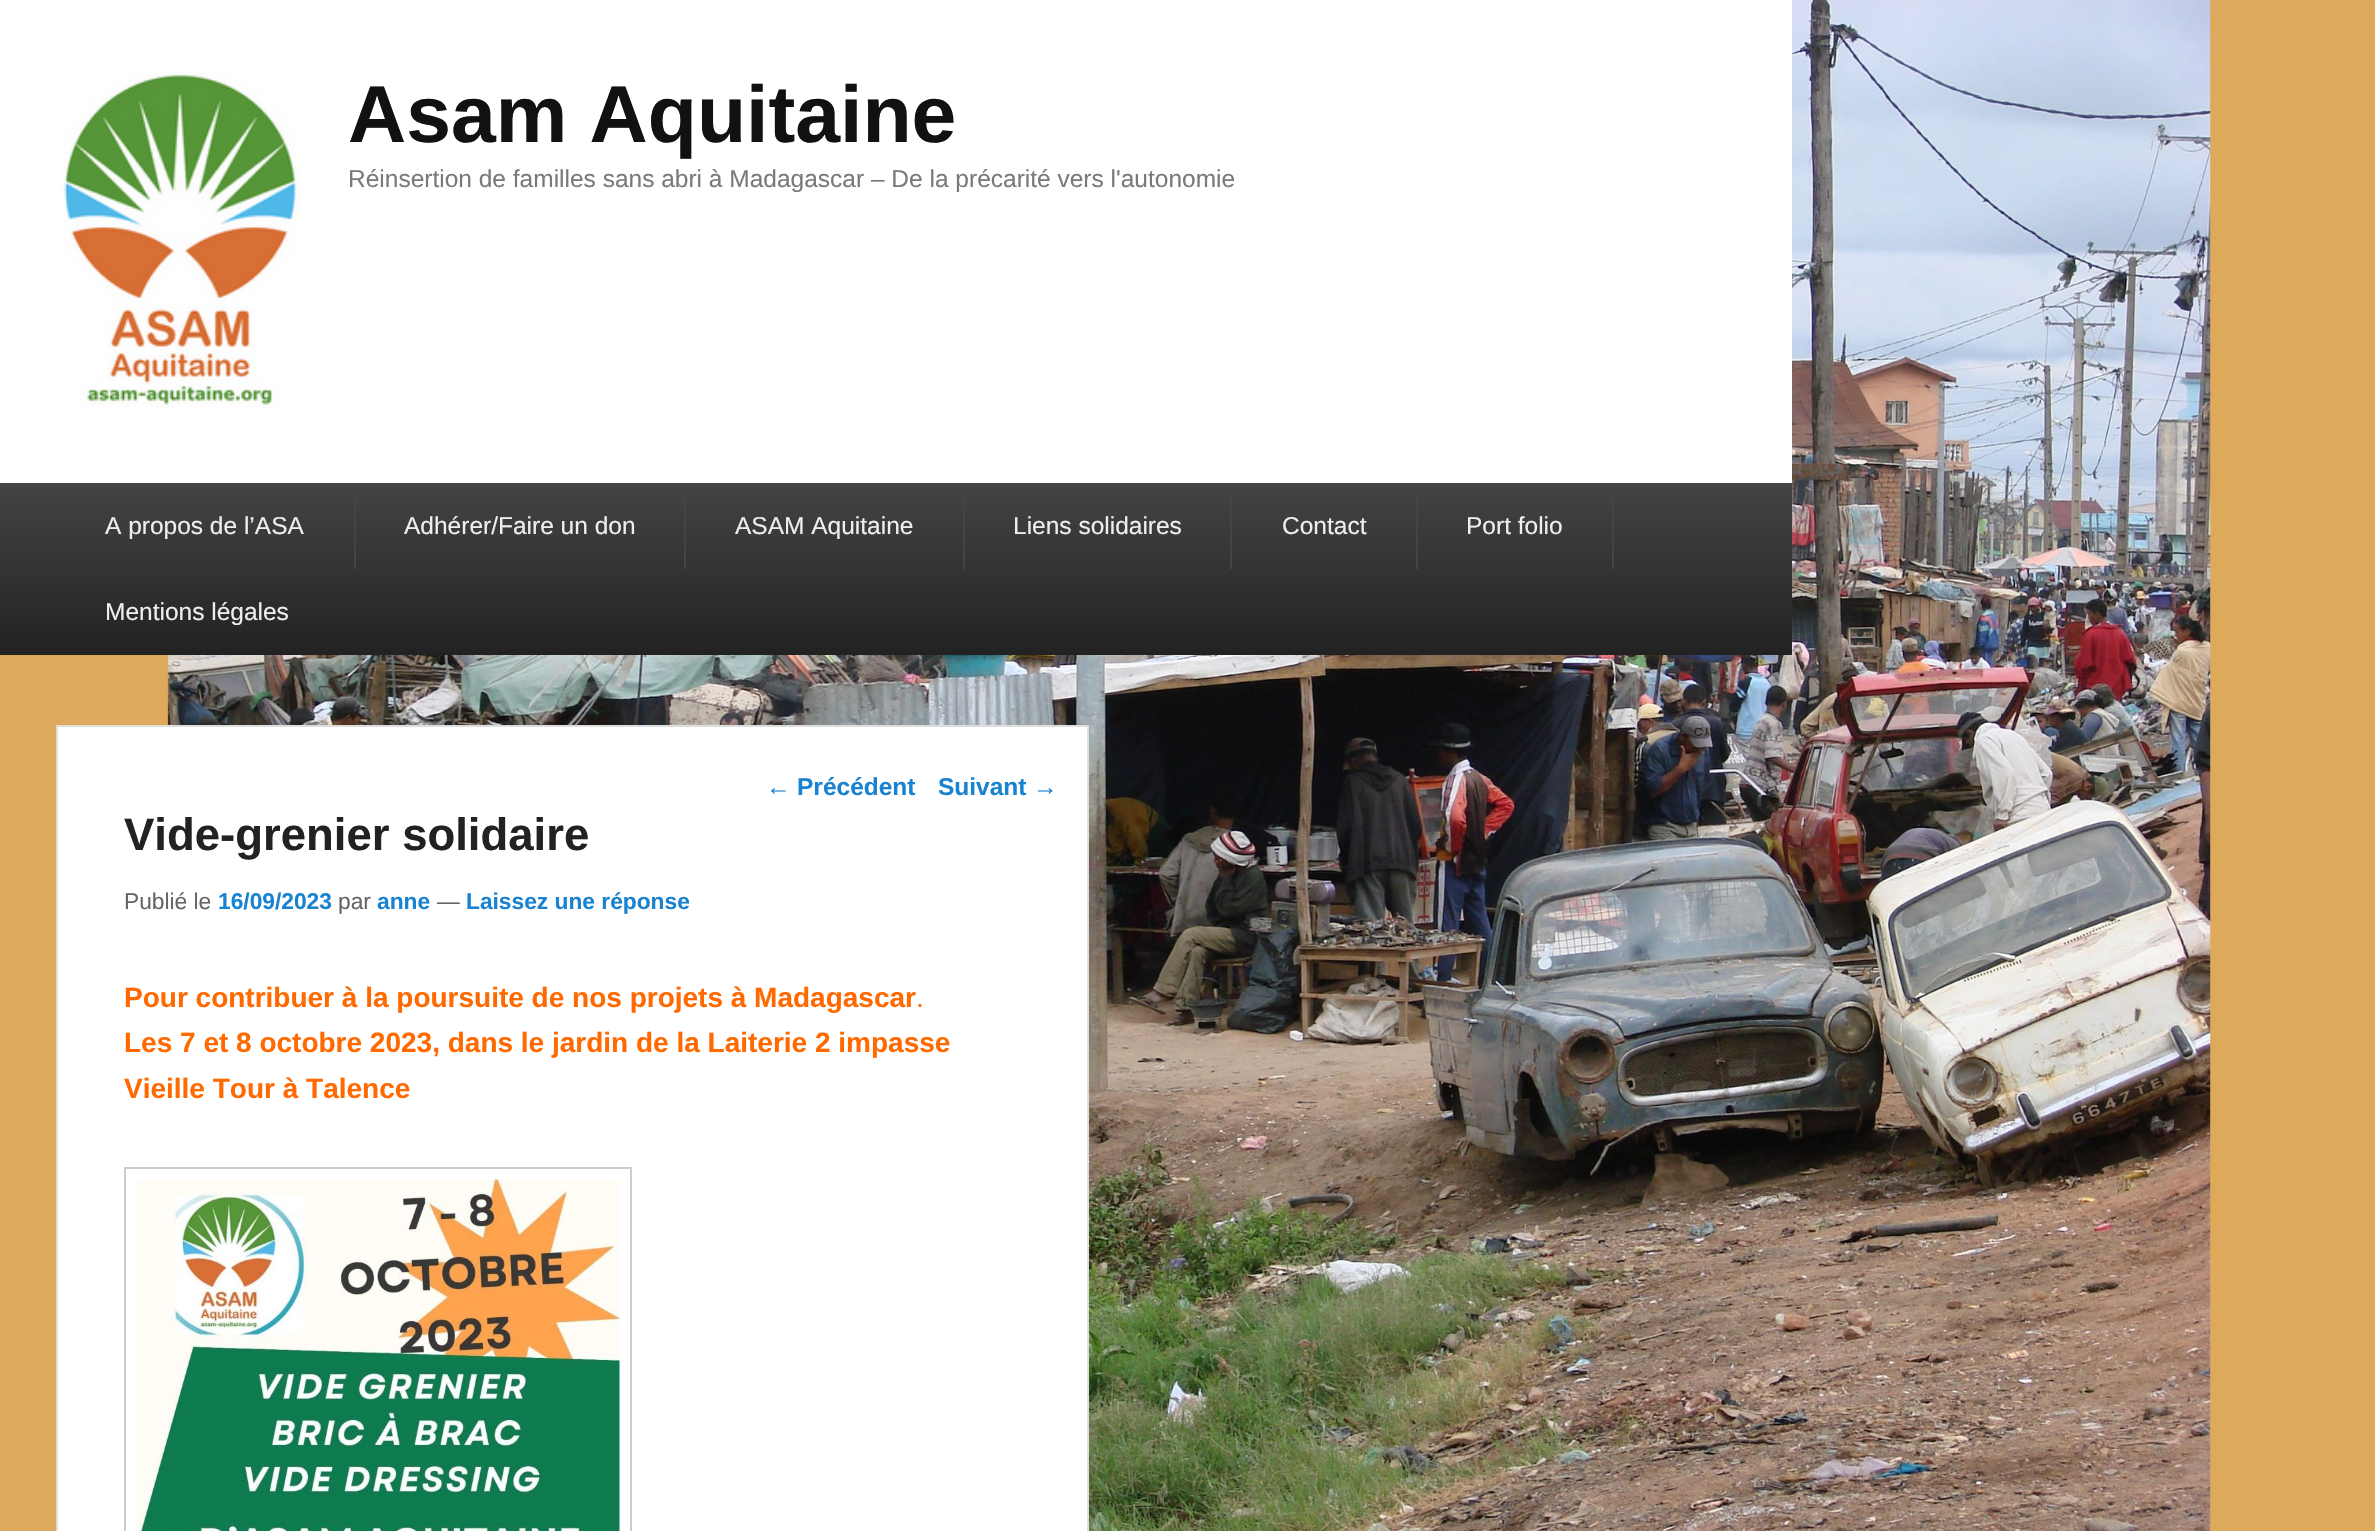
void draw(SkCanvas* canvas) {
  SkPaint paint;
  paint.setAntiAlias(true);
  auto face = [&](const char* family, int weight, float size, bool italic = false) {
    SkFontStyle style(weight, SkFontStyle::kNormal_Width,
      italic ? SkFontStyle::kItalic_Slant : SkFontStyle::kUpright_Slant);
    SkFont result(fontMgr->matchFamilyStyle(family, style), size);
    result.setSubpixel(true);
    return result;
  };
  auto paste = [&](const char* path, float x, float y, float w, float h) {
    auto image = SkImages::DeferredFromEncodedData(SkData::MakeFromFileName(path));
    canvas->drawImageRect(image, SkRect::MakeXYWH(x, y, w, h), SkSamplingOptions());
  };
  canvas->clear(0xffdda95a);
  paste("img/1.png", 167, 0, 2044, 1531);
  paint.setColor(0xffffffff);
  canvas->drawRect(SkRect::MakeXYWH(0, 0, 1792, 483), paint);
  paste("img/2.png", 62, 72, 237, 336);
  {
    const SkColor colors[] = {0xff444444, 0xff222222};
    const float stops[] = {0, 1};
    const SkPoint ends[] = {{896, 483}, {896, 655}};
    paint.setShader(SkGradientShader::MakeLinear(ends, colors, stops, 2, SkTileMode::kClamp));
    paint.setAlpha(255);
  }
  canvas->drawRect(SkRect::MakeXYWH(0, 483, 1792, 172), paint);
  paint.setShader(nullptr);
  {
    const struct { float x, y, w, h; SkColor color; } items[] = {
      {354, 496, 2, 73, 0xff444444},
      {684, 496, 2, 73, 0xff444444},
      {963, 496, 2, 73, 0xff444444},
      {1230, 496, 2, 73, 0xff444444},
      {1416, 496, 2, 73, 0xff444444},
      {1612, 496, 2, 73, 0xff444444},
    };
    for (auto [x, y, w, h, color] : items) {
      paint.setColor(color);
      canvas->drawRect(SkRect::MakeXYWH(x, y, w, h), paint);
    }
  }
  paint.setColor(0xffffffff);
  canvas->drawRect(SkRect::MakeXYWH(57, 726, 1031, 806), paint);
  paint.setStroke(true);
  paint.setStrokeWidth(2);
  paint.setColor(0xffdddddd);
  canvas->drawRect(SkRect::MakeXYWH(57, 726, 1031, 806), paint);
  paint.setColor(0xffcccccc);
  canvas->drawRect(SkRect::MakeXYWH(125, 1168, 506, 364), paint);
  paste("img/3.png", 136, 1179, 484, 352);
  auto f0 = face("Liberation Sans", 700, 80.5f);
  paint.setStroke(false);
  paint.setColor(0xff111111);
  canvas->drawString("Asam Aquitaine", 348, 142, f0, paint);
  auto f1 = face("Liberation Sans", 400, 24.5f);
  paint.setColor(0xff7a7a7a);
  canvas->drawString("Réinsertion de familles sans abri à Madagascar – De la précarité vers l'autonomie", 348, 187, f1, paint);
  paint.setColor(0xffeeeeee);
  {
    const struct { const char* s; float x, y; } items[] = {
      {"A propos de l’ASA", 105, 534},
      {"Adhérer/Faire un don", 404, 534},
      {"ASAM Aquitaine", 735, 534},
      {"Liens solidaires", 1013, 534},
      {"Contact", 1282, 534},
      {"Port folio", 1466, 534},
      {"Mentions légales", 105, 620},
    };
    for (auto [s, x, y] : items) {
      canvas->drawString(s, x, y, f1, paint);
    }
  }
  paint.setColor(0xff1982d1);
  canvas->drawString("←", 766, 795, f1, paint);
  auto f2 = face("Liberation Sans", 700, 24.5f);
  canvas->drawString("Précédent", 797, 795, f2, paint);
  canvas->drawString("Suivant", 938, 795, f2, paint);
  canvas->drawString("→", 1033, 795, f1, paint);
  auto f3 = face("Liberation Sans", 700, 45.5f);
  paint.setColor(0xff222222);
  canvas->drawString("Vide-grenier solidaire", 124, 850, f3, paint);
  auto f4 = face("Liberation Sans", 400, 22.75f);
  paint.setColor(0xff666666);
  canvas->drawString("Publié le", 124, 909, f4, paint);
  auto f5 = face("Liberation Sans", 700, 22.75f);
  paint.setColor(0xff1982d1);
  canvas->drawString("16/09/2023", 218, 909, f5, paint);
  paint.setColor(0xff666666);
  canvas->drawString("par", 338, 909, f4, paint);
  paint.setColor(0xff1982d1);
  canvas->drawString("anne", 377, 909, f5, paint);
  paint.setColor(0xff666666);
  canvas->drawString("—", 437, 909, f4, paint);
  paint.setColor(0xff1982d1);
  canvas->drawString("Laissez une réponse", 466, 909, f5, paint);
  auto f6 = face("Liberation Sans", 700, 28);
  paint.setColor(0xffff6900);
  canvas->drawString("Pour contribuer à la poursuite de nos projets à Madagascar", 124, 1007, f6, paint);
  auto f7 = face("Liberation Sans", 400, 28);
  canvas->drawString(".", 916, 1007, f7, paint);
  canvas->drawString("Les 7 et 8 octobre 2023, dans le jardin de la Laiterie 2 impasse", 124, 1052, f6, paint);
  canvas->drawString("Vieille Tour à Talence", 124, 1098, f6, paint);
}
